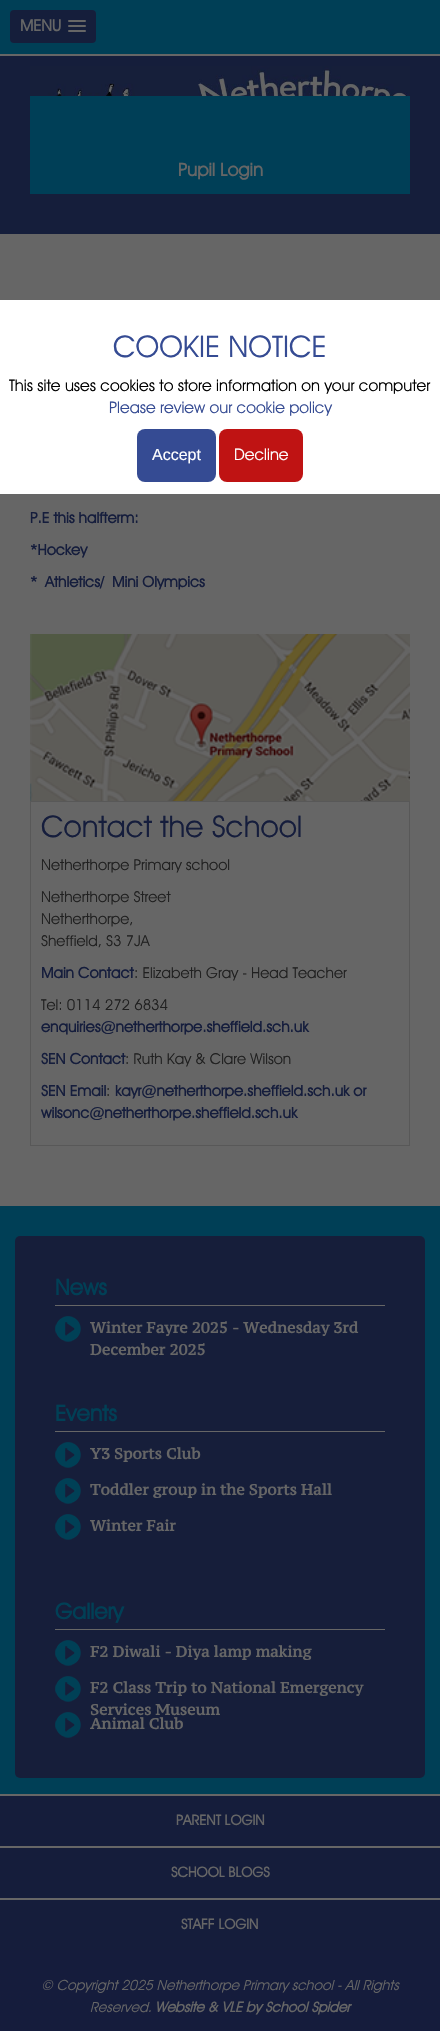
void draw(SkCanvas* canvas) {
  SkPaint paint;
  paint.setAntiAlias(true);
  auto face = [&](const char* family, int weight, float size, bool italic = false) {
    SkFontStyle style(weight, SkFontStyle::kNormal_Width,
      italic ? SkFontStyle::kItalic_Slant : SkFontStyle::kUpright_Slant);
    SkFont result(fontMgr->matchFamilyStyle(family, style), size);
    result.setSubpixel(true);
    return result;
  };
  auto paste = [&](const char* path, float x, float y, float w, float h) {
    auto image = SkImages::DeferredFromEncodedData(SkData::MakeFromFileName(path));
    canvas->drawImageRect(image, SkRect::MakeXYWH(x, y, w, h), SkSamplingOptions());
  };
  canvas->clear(0xff003f56);
  paint.setColor(0xff666666);
  canvas->drawRect(SkRect::MakeXYWH(0, 54, 440, 2), paint);
  paint.setColor(0xff151e3b);
  canvas->drawRoundRect(SkRect::MakeXYWH(10, 10, 86, 33), 4, 4, paint);
  paint.setColor(0xff666666);
  canvas->drawRoundRect(SkRect::MakeXYWH(68, 20, 18, 2), 1, 1, paint);
  canvas->drawRoundRect(SkRect::MakeXYWH(68, 25, 18, 2), 1, 1, paint);
  canvas->drawRoundRect(SkRect::MakeXYWH(68, 30, 18, 2), 1, 1, paint);
  paint.setColor(0xff151e3b);
  canvas->drawRect(SkRect::MakeXYWH(0, 56, 440, 178), paint);
  paste("img/1.png", 30, 66, 380, 30);
  paint.setColor(0xff003f57);
  canvas->drawRect(SkRect::MakeXYWH(30, 96, 380, 98), paint);
  paint.setColor(0xff666666);
  canvas->drawRect(SkRect::MakeXYWH(0, 234, 440, 972), paint);
  paste("img/2.png", 30, 634, 380, 167);
  paint.setStroke(true);
  paint.setStrokeWidth(1);
  paint.setColor(0xff585858);
  canvas->drawRect(SkRect::MakeXYWH(30.5f, 801.5f, 379, 344), paint);
  paint.setStroke(false);
  paint.setColor(0xff161e3a);
  canvas->drawRoundRect(SkRect::MakeXYWH(15, 1236, 410, 542), 5, 5, paint);
  paint.setColor(0xff666666);
  canvas->drawRect(SkRect::MakeXYWH(55, 1305, 330, 1), paint);
  paste("img/3.png", 55, 1316, 26, 26);
  canvas->drawRect(SkRect::MakeXYWH(55, 1431, 330, 1), paint);
  paste("img/3.png", 55, 1442, 26, 26);
  paste("img/3.png", 55, 1478, 26, 26);
  paste("img/3.png", 55, 1514, 26, 26);
  canvas->drawRect(SkRect::MakeXYWH(55, 1629, 330, 1), paint);
  paste("img/3.png", 55, 1640, 26, 26);
  paste("img/3.png", 55, 1676, 26, 26);
  paste("img/3.png", 55, 1712, 26, 26);
  {
    const struct { float x, y, w, h; SkColor color; } items[] = {
      {0, 1796, 440, 50, 0xff151d3b},
      {0, 1794, 440, 2, 0xff666666},
      {0, 1848, 440, 50, 0xff151d3b},
      {0, 1846, 440, 2, 0xff666666},
      {0, 1900, 440, 50, 0xff151d3b},
      {0, 1898, 440, 2, 0xff666666},
      {0, 1950, 440, 81, 0xff151c3c},
      {0, 300, 440, 194, 0xffffffff},
    };
    for (auto [x, y, w, h, color] : items) {
      paint.setColor(color);
      canvas->drawRect(SkRect::MakeXYWH(x, y, w, h), paint);
    }
  }
  paint.setColor(0xff354b93);
  canvas->drawRoundRect(SkRect::MakeXYWH(137, 429, 79, 53), 8, 8, paint);
  paint.setColor(0xffbf1313);
  canvas->drawRoundRect(SkRect::MakeXYWH(219, 429, 84, 53), 8, 8, paint);
  auto f0 = face("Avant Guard", 700, 16);
  paint.setColor(0xff666666);
  canvas->drawString("MENU", 20, 31, f0, paint);
  auto f1 = face("Avant Guard", 700, 18);
  canvas->drawString("Pupil Login", 178, 176, f1, paint);
  auto f2 = face("Avant Guard", 700, 15);
  paint.setColor(0xff151d3c);
  {
    const struct { const char* s; float x, y; } items[] = {
      {"P.E this halfterm:", 30, 523},
      {"*Hockey", 30, 555},
      {"*", 30, 587},
      {"Athletics/", 45, 587},
      {"Mini Olympics", 112, 587},
    };
    for (auto [s, x, y] : items) {
      canvas->drawString(s, x, y, f2, paint);
    }
  }
  auto f3 = face("Avant Guard", 400, 30);
  canvas->drawString("Contact the School", 41, 837, f3, paint);
  auto f4 = face("Avant Guard", 400, 15);
  paint.setColor(0xff202020);
  {
    const struct { const char* s; float x, y; } items[] = {
      {"Netherthorpe Primary school", 41, 870},
      {"Netherthorpe Street", 41, 902},
      {"Netherthorpe,", 41, 924},
      {"Sheffield, S3 7JA", 41, 946},
    };
    for (auto [s, x, y] : items) {
      canvas->drawString(s, x, y, f4, paint);
    }
  }
  paint.setColor(0xff151d3c);
  canvas->drawString("Main Contact", 41, 978, f2, paint);
  paint.setColor(0xff202020);
  canvas->drawString(": Elizabeth Gray - Head Teacher", 134, 978, f4, paint);
  canvas->drawString("Tel: 0114 272 6834", 41, 1010, f4, paint);
  paint.setColor(0xff151d3c);
  canvas->drawString("enquiries@netherthorpe.sheffield.sch.uk", 41, 1032, f2, paint);
  canvas->drawString("SEN Contact", 41, 1064, f2, paint);
  paint.setColor(0xff202020);
  canvas->drawString(": Ruth Kay & Clare Wilson", 125, 1064, f4, paint);
  paint.setColor(0xff151d3c);
  canvas->drawString("SEN Email", 41, 1096, f2, paint);
  paint.setColor(0xff202020);
  canvas->drawString(":", 106, 1096, f4, paint);
  paint.setColor(0xff151d3c);
  canvas->drawString("kayr@netherthorpe.sheffield.sch.uk or", 115, 1096, f2, paint);
  canvas->drawString("wilsonc@netherthorpe.sheffield.sch.uk", 41, 1118, f2, paint);
  auto f5 = face("Avant Guard", 700, 22);
  paint.setColor(0xff004056);
  canvas->drawString("News", 55, 1295, f5, paint);
  auto f6 = face("PT Serif Caption", 700, 15);
  paint.setColor(0xff666666);
  canvas->drawString("Winter Fayre 2025 - Wednesday 3rd", 90, 1333, f6, paint);
  canvas->drawString("December 2025", 90, 1355, f6, paint);
  paint.setColor(0xff004056);
  canvas->drawString("Events", 55, 1421, f5, paint);
  paint.setColor(0xff666666);
  {
    const struct { const char* s; float x, y; } items[] = {
      {"Y3 Sports Club", 90, 1459},
      {"Toddler group in the Sports Hall", 90, 1495},
      {"Winter Fair", 90, 1531},
    };
    for (auto [s, x, y] : items) {
      canvas->drawString(s, x, y, f6, paint);
    }
  }
  paint.setColor(0xff004056);
  canvas->drawString("Gallery", 55, 1619, f5, paint);
  paint.setColor(0xff666666);
  {
    const struct { const char* s; float x, y; } items[] = {
      {"F2 Diwali - Diya lamp making", 90, 1657},
      {"F2 Class Trip to National Emergency", 90, 1693},
      {"Services Museum", 90, 1715},
      {"Animal Club", 90, 1729},
    };
    for (auto [s, x, y] : items) {
      canvas->drawString(s, x, y, f6, paint);
    }
  }
  auto f7 = face("Avant Guard", 700, 14);
  {
    const struct { const char* s; float x, y; } items[] = {
      {"PARENT LOGIN", 176, 1825},
      {"SCHOOL BLOGS", 171, 1877},
      {"STAFF LOGIN", 181, 1929},
    };
    for (auto [s, x, y] : items) {
      canvas->drawString(s, x, y, f7, paint);
    }
  }
  auto f8 = face("Avant Guard", 400, 14, true);
  canvas->drawString("© Copyright 2025 Netherthorpe Primary school - All Rights", 41, 1990, f8, paint);
  canvas->drawString("Reserved.", 90, 2012, f8, paint);
  auto f9 = face("Avant Guard", 700, 14, true);
  canvas->drawString("Website & VLE by School Spider", 155, 2012, f9, paint);
  paint.setColor(0xff354b93);
  canvas->drawString("COOKIE NOTICE", 113, 357, f3, paint);
  auto f10 = face("Avant Guard", 400, 16);
  paint.setColor(0xff000000);
  canvas->drawString("This site uses cookies to store information on your computer", 9, 391, f10, paint);
  paint.setColor(0xff354b93);
  canvas->drawString("Please review our cookie policy", 109, 413, f10, paint);
  auto f11 = face("Liberation Sans", 400, 16);
  paint.setColor(0xffffffff);
  canvas->drawString("Accept", 152, 460, f11, paint);
  canvas->drawString("Decline", 234, 460, f10, paint);
}
